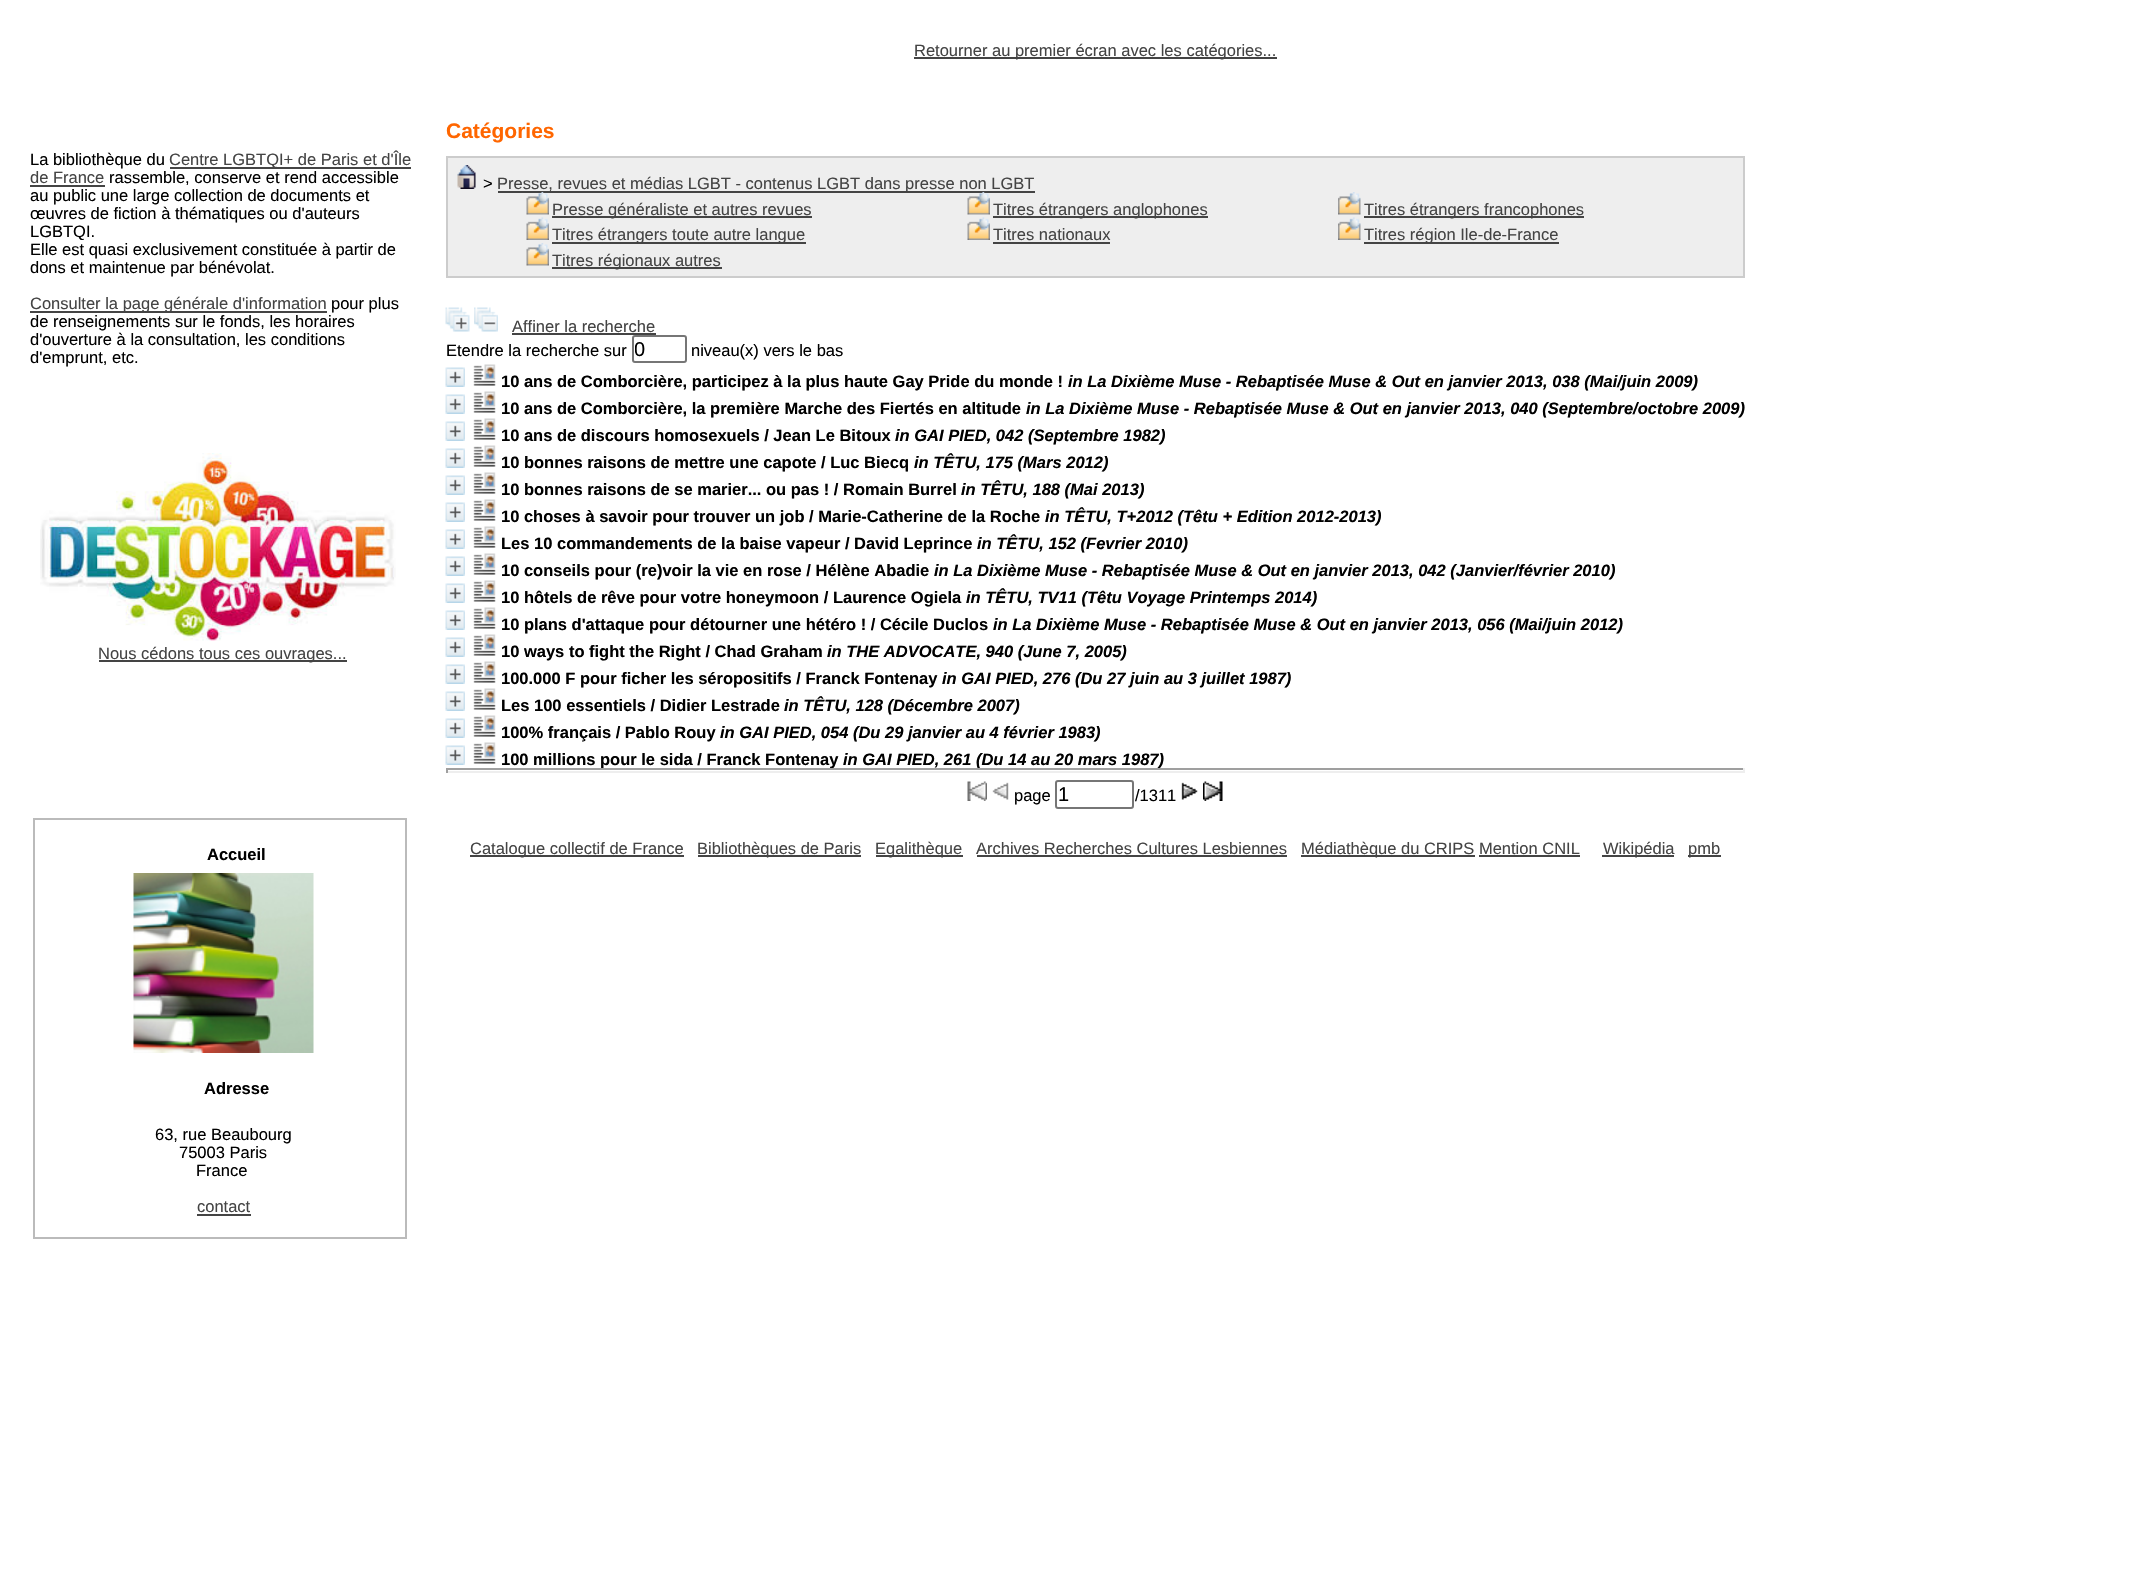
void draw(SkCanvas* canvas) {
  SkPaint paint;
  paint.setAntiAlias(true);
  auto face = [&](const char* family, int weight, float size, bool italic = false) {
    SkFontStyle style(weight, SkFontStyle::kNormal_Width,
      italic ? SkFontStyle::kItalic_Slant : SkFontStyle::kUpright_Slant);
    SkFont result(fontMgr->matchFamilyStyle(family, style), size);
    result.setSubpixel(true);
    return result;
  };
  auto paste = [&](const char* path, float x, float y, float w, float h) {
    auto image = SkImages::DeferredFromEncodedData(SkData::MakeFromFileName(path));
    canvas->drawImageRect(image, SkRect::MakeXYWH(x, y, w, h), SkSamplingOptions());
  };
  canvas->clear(0xffffffff);
  {
    const struct { float x, y, w, h; SkColor color; } items[] = {
      {170, 167, 241, 2, 0xff444444},
      {30, 185, 75, 2, 0xff444444},
      {30, 311, 297, 2, 0xff444444},
    };
    for (auto [x, y, w, h, color] : items) {
      paint.setColor(color);
      canvas->drawRect(SkRect::MakeXYWH(x, y, w, h), paint);
    }
  }
  paste("img/1.png", 40, 453, 356, 188);
  canvas->drawRect(SkRect::MakeXYWH(99, 660, 248, 2), paint);
  canvas->drawRect(SkRect::MakeXYWH(914, 57, 363, 2), paint);
  paint.setColor(0xffeeeeee);
  canvas->drawRect(SkRect::MakeXYWH(447, 157, 1297, 120), paint);
  paint.setStroke(true);
  paint.setStrokeWidth(2);
  paint.setColor(0xffcccccc);
  canvas->drawRect(SkRect::MakeXYWH(447, 157, 1297, 120), paint);
  paste("img/2.png", 457, 165, 19, 24);
  paint.setStroke(false);
  {
    const struct { float x, y, w, h; SkColor color; } items[] = {
      {498, 191, 537, 2, 0xff444444},
      {552, 216, 260, 2, 0xff444444},
      {993, 216, 215, 2, 0xff444444},
    };
    for (auto [x, y, w, h, color] : items) {
      paint.setColor(color);
      canvas->drawRect(SkRect::MakeXYWH(x, y, w, h), paint);
    }
  }
  paste("img/5.png", 1338, 192, 23, 23);
  canvas->drawRect(SkRect::MakeXYWH(1364, 216, 220, 2), paint);
  paste("img/6.png", 526, 217, 23, 23);
  canvas->drawRect(SkRect::MakeXYWH(552, 242, 254, 2), paint);
  paste("img/7.png", 967, 217, 23, 23);
  canvas->drawRect(SkRect::MakeXYWH(993, 242, 117, 2), paint);
  paste("img/8.png", 1338, 217, 23, 23);
  canvas->drawRect(SkRect::MakeXYWH(1364, 242, 195, 2), paint);
  paste("img/9.png", 526, 243, 23, 23);
  canvas->drawRect(SkRect::MakeXYWH(552, 267, 170, 2), paint);
  paste("img/10.png", 445, 307, 25, 25);
  paste("img/11.png", 474, 307, 24, 25);
  canvas->drawRect(SkRect::MakeXYWH(512, 333, 144, 2), paint);
  paint.setStroke(true);
  paint.setColor(0xff767676);
  canvas->drawRoundRect(SkRect::MakeXYWH(633, 336, 53, 26), 2, 2, paint);
  paste("img/12.png", 445, 367, 20, 20);
  paste("img/13.png", 473, 364, 23, 22);
  paste("img/12.png", 445, 394, 20, 20);
  paste("img/13.png", 473, 391, 23, 22);
  paste("img/12.png", 445, 421, 20, 20);
  paste("img/13.png", 473, 418, 23, 22);
  paste("img/12.png", 445, 448, 20, 20);
  paste("img/13.png", 473, 445, 23, 22);
  paste("img/12.png", 445, 475, 20, 20);
  paste("img/13.png", 473, 472, 23, 22);
  paste("img/12.png", 445, 502, 20, 20);
  paste("img/13.png", 473, 499, 23, 22);
  paste("img/12.png", 445, 529, 20, 20);
  paste("img/13.png", 473, 526, 23, 22);
  paste("img/12.png", 445, 556, 20, 20);
  paste("img/13.png", 473, 553, 23, 22);
  paste("img/12.png", 445, 583, 20, 20);
  paste("img/13.png", 473, 580, 23, 22);
  paste("img/12.png", 445, 610, 20, 20);
  paste("img/13.png", 473, 607, 23, 22);
  paste("img/12.png", 445, 637, 20, 20);
  paste("img/13.png", 473, 634, 23, 22);
  paste("img/12.png", 445, 664, 20, 20);
  paste("img/13.png", 473, 661, 23, 22);
  paste("img/12.png", 445, 691, 20, 20);
  paste("img/13.png", 473, 688, 23, 22);
  paste("img/12.png", 445, 718, 20, 20);
  paste("img/13.png", 473, 715, 23, 22);
  paste("img/12.png", 445, 745, 20, 20);
  paste("img/13.png", 473, 742, 23, 22);
  paste("img/14.png", 967, 781, 20, 20);
  paste("img/15.png", 992, 782, 17, 18);
  canvas->drawRoundRect(SkRect::MakeXYWH(1056, 781, 77, 27), 2, 2, paint);
  paste("img/16.png", 1181, 782, 17, 18);
  paste("img/17.png", 1203, 781, 20, 20);
  paint.setStroke(false);
  {
    const struct { float x, y, w, h; SkColor color; } items[] = {
      {470, 855, 214, 2, 0xff444444},
      {698, 855, 163, 2, 0xff444444},
      {876, 855, 87, 2, 0xff444444},
      {977, 855, 310, 2, 0xff444444},
      {1301, 855, 174, 2, 0xff444444},
      {1479, 855, 101, 2, 0xff444444},
      {1602, 855, 72, 2, 0xff444444},
      {1688, 855, 33, 2, 0xff444444},
    };
    for (auto [x, y, w, h, color] : items) {
      paint.setColor(color);
      canvas->drawRect(SkRect::MakeXYWH(x, y, w, h), paint);
    }
  }
  paint.setStroke(true);
  paint.setColor(0xffbbbbbb);
  canvas->drawRect(SkRect::MakeXYWH(34, 819, 372, 419), paint);
  paste("img/18.png", 133, 873, 181, 180);
  paint.setStroke(false);
  paint.setColor(0xff444444);
  canvas->drawRect(SkRect::MakeXYWH(197, 1214, 54, 2), paint);
  auto f0 = face("Liberation Sans", 400, 16.5f);
  paint.setColor(0xff000000);
  canvas->drawString("La bibliothèque du", 30, 165, f0, paint);
  paint.setColor(0xff444444);
  canvas->drawString("Centre LGBTQI+ de Paris et d'Île", 169, 165, f0, paint);
  canvas->drawString("de France", 30, 183, f0, paint);
  paint.setColor(0xff000000);
  {
    const struct { const char* s; float x, y; } items[] = {
      {"rassemble, conserve et rend accessible", 109, 183},
      {"au public une large collection de documents et", 30, 201},
      {"œuvres de fiction à thématiques ou d'auteurs", 30, 219},
      {"LGBTQI.", 30, 237},
      {"Elle est quasi exclusivement constituée à partir de", 30, 255},
      {"dons et maintenue par bénévolat.", 30, 273},
    };
    for (auto [s, x, y] : items) {
      canvas->drawString(s, x, y, f0, paint);
    }
  }
  paint.setColor(0xff444444);
  canvas->drawString("Consulter la page générale d'information", 30, 309, f0, paint);
  paint.setColor(0xff000000);
  {
    const struct { const char* s; float x, y; } items[] = {
      {"pour plus", 331, 309},
      {"de renseignements sur le fonds, les horaires", 30, 327},
      {"d'ouverture à la consultation, les conditions", 30, 345},
      {"d'emprunt, etc.", 30, 363},
    };
    for (auto [s, x, y] : items) {
      canvas->drawString(s, x, y, f0, paint);
    }
  }
  paint.setColor(0xff444444);
  canvas->drawString("Nous cédons tous ces ouvrages...", 98, 659, f0, paint);
  canvas->drawString("Retourner au premier écran avec les catégories...", 914, 56, f0, paint);
  auto f1 = face("Liberation Sans", 700, 21);
  paint.setColor(0xffff6600);
  canvas->drawString("Catégories", 446, 138, f1, paint);
  paint.setColor(0xff000000);
  canvas->drawString(">", 483, 189, f0, paint);
  paint.setColor(0xff444444);
  canvas->drawString("Presse, revues et médias LGBT - contenus LGBT dans presse non LGBT", 497, 189, f0, paint);
  paste("img/3.png", 526, 192, 23, 23);
  canvas->drawString("Presse généraliste et autres revues", 552, 215, f0, paint);
  paste("img/4.png", 967, 192, 23, 23);
  {
    const struct { const char* s; float x, y; } items[] = {
      {"Titres étrangers anglophones", 993, 215},
      {"Titres étrangers francophones", 1364, 215},
      {"Titres étrangers toute autre langue", 552, 240},
      {"Titres nationaux", 993, 240},
      {"Titres région Ile-de-France", 1364, 240},
      {"Titres régionaux autres", 552, 266},
      {"Affiner la recherche", 512, 332},
    };
    for (auto [s, x, y] : items) {
      canvas->drawString(s, x, y, f0, paint);
    }
  }
  paint.setColor(0xff000000);
  canvas->drawString("Etendre la recherche sur", 446, 356, f0, paint);
  canvas->save();
  canvas->clipRect(SkRect::MakeXYWH(635, 338, 49, 22));
  auto f2 = face("Liberation Sans", 400, 20);
  canvas->drawString("0", 634, 356, f2, paint);
  canvas->restore();
  canvas->drawString("niveau(x) vers le bas", 691, 356, f0, paint);
  auto f3 = face("Liberation Sans", 700, 16.5f);
  canvas->drawString("10 ans de Comborcière, participez à la plus haute Gay Pride du monde !", 501, 387, f3, paint);
  auto f4 = face("Liberation Sans", 700, 16.5f, true);
  canvas->drawString("in La Dixième Muse - Rebaptisée Muse & Out en janvier 2013, 038 (Mai/juin 2009)", 1068, 387, f4, paint);
  canvas->drawString("10 ans de Comborcière, la première Marche des Fiertés en altitude", 501, 414, f3, paint);
  canvas->drawString("in La Dixième Muse - Rebaptisée Muse & Out en janvier 2013, 040 (Septembre/octobre 2009)", 1026, 414, f4, paint);
  canvas->drawString("10 ans de discours homosexuels / Jean Le Bitoux", 501, 441, f3, paint);
  canvas->drawString("in GAI PIED, 042 (Septembre 1982)", 895, 441, f4, paint);
  canvas->drawString("10 bonnes raisons de mettre une capote / Luc Biecq", 501, 468, f3, paint);
  canvas->drawString("in TÊTU, 175 (Mars 2012)", 914, 468, f4, paint);
  canvas->drawString("10 bonnes raisons de se marier... ou pas ! / Romain Burrel", 501, 495, f3, paint);
  canvas->drawString("in TÊTU, 188 (Mai 2013)", 961, 495, f4, paint);
  canvas->drawString("10 choses à savoir pour trouver un job / Marie-Catherine de la Roche", 501, 522, f3, paint);
  canvas->drawString("in TÊTU, T+2012 (Têtu + Edition 2012-2013)", 1045, 522, f4, paint);
  canvas->drawString("Les 10 commandements de la baise vapeur / David Leprince", 501, 549, f3, paint);
  canvas->drawString("in TÊTU, 152 (Fevrier 2010)", 977, 549, f4, paint);
  canvas->drawString("10 conseils pour (re)voir la vie en rose / Hélène Abadie", 501, 576, f3, paint);
  canvas->drawString("in La Dixième Muse - Rebaptisée Muse & Out en janvier 2013, 042 (Janvier/février 2010)", 934, 576, f4, paint);
  canvas->drawString("10 hôtels de rêve pour votre honeymoon / Laurence Ogiela", 501, 603, f3, paint);
  canvas->drawString("in TÊTU, TV11 (Têtu Voyage Printemps 2014)", 966, 603, f4, paint);
  canvas->drawString("10 plans d'attaque pour détourner une hétéro ! / Cécile Duclos", 501, 630, f3, paint);
  canvas->drawString("in La Dixième Muse - Rebaptisée Muse & Out en janvier 2013, 056 (Mai/juin 2012)", 993, 630, f4, paint);
  canvas->drawString("10 ways to fight the Right / Chad Graham", 501, 657, f3, paint);
  canvas->drawString("in THE ADVOCATE, 940 (June 7, 2005)", 827, 657, f4, paint);
  canvas->drawString("100.000 F pour ficher les séropositifs / Franck Fontenay", 501, 684, f3, paint);
  canvas->drawString("in GAI PIED, 276 (Du 27 juin au 3 juillet 1987)", 942, 684, f4, paint);
  canvas->drawString("Les 100 essentiels / Didier Lestrade", 501, 711, f3, paint);
  canvas->drawString("in TÊTU, 128 (Décembre 2007)", 784, 711, f4, paint);
  canvas->drawString("100% français / Pablo Rouy", 501, 738, f3, paint);
  canvas->drawString("in GAI PIED, 054 (Du 29 janvier au 4 février 1983)", 720, 738, f4, paint);
  canvas->drawString("100 millions pour le sida / Franck Fontenay", 501, 765, f3, paint);
  canvas->drawString("in GAI PIED, 261 (Du 14 au 20 mars 1987)", 843, 765, f4, paint);
  {
    const struct { float x, y, w, h; SkColor color; } items[] = {
      {446, 768, 1299, 2, 0xff9f9f9f},
      {1743, 768, 2, 5, 0xffeeeeee},
      {446, 771, 1299, 2, 0xffeeeeee},
      {446, 768, 2, 5, 0xff9f9f9f},
    };
    for (auto [x, y, w, h, color] : items) {
      paint.setColor(color);
      canvas->drawRect(SkRect::MakeXYWH(x, y, w, h), paint);
    }
  }
  paint.setColor(0xff000000);
  canvas->drawString("page", 1014, 801, f0, paint);
  canvas->drawString("1", 1058, 801, f2, paint);
  canvas->drawString("/1311", 1135, 801, f0, paint);
  paint.setColor(0xff444444);
  {
    const struct { const char* s; float x, y; } items[] = {
      {"Catalogue collectif de France", 470, 854},
      {"Bibliothèques de Paris", 697, 854},
      {"Egalithèque", 875, 854},
      {"Archives Recherches Cultures Lesbiennes", 976, 854},
      {"Médiathèque du CRIPS Mention CNIL", 1301, 854},
      {"Wikipédia", 1603, 854},
      {"pmb", 1688, 854},
    };
    for (auto [s, x, y] : items) {
      canvas->drawString(s, x, y, f0, paint);
    }
  }
  paint.setColor(0xff000000);
  canvas->drawString("Accueil", 207, 860, f3, paint);
  canvas->drawString("Adresse", 204, 1094, f3, paint);
  {
    const struct { const char* s; float x, y; } items[] = {
      {"63, rue Beaubourg", 155, 1140},
      {"75003 Paris", 179, 1158},
      {"France", 196, 1176},
    };
    for (auto [s, x, y] : items) {
      canvas->drawString(s, x, y, f0, paint);
    }
  }
  paint.setColor(0xff444444);
  canvas->drawString("contact", 197, 1212, f0, paint);
}
